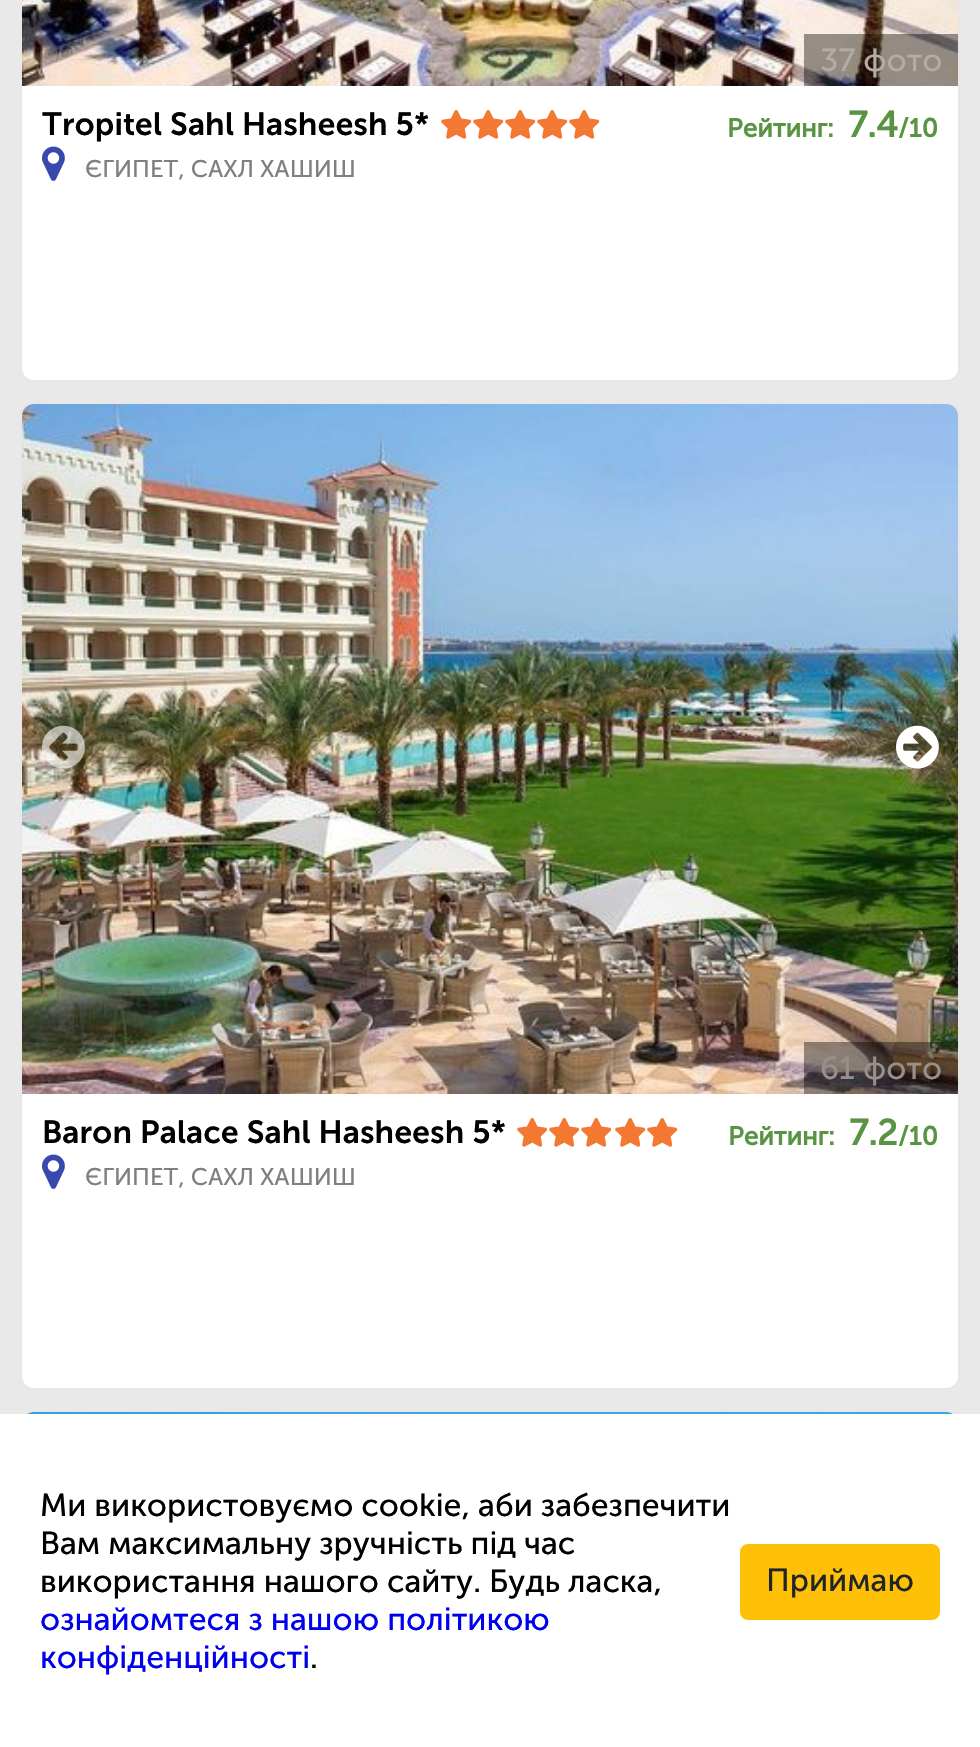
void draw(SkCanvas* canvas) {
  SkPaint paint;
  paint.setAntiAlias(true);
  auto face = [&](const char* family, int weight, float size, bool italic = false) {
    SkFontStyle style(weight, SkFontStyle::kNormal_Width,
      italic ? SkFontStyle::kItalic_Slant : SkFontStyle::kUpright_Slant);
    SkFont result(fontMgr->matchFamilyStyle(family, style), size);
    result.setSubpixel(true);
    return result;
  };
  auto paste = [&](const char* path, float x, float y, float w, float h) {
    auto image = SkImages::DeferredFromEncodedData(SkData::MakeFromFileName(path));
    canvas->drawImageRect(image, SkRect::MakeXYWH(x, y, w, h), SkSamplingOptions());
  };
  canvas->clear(0xffe9e9e9);
  paint.setColor(0xffffffff);
  canvas->drawRoundRect(SkRect::MakeXYWH(21, -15, 938, 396), 13, 13, paint);
  paint.setStroke(true);
  paint.setStrokeWidth(2);
  paint.setColor(0xffe8e6e6);
  canvas->drawRoundRect(SkRect::MakeXYWH(21, -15, 938, 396), 13, 13, paint);
  paste("img/1.png", 22, 0, 936, 86);
  paint.setStroke(false);
  paint.setColor(0x66000000);
  canvas->drawRect(SkRect::MakeXYWH(804, 34, 154, 52), paint);
  paste("img/2.png", 441, 110, 31, 29);
  paste("img/2.png", 473, 110, 31, 29);
  paste("img/2.png", 505, 110, 31, 29);
  paste("img/2.png", 537, 110, 31, 29);
  paste("img/2.png", 569, 110, 31, 29);
  paste("img/3.png", 42, 146, 23, 35);
  paint.setColor(0xffffffff);
  canvas->drawRoundRect(SkRect::MakeXYWH(21, 403, 938, 986), 13, 13, paint);
  paint.setStroke(true);
  paint.setColor(0xffe8e6e6);
  canvas->drawRoundRect(SkRect::MakeXYWH(21, 403, 938, 986), 13, 13, paint);
  paste("img/4.png", 946, 404, 12, 12);
  paste("img/5.png", 22, 404, 936, 690);
  paste("img/6.png", 42, 725, 43, 44);
  paste("img/7.png", 896, 725, 43, 44);
  paint.setStroke(false);
  paint.setColor(0x66000000);
  canvas->drawRect(SkRect::MakeXYWH(804, 1042, 154, 52), paint);
  paste("img/2.png", 517, 1118, 31, 29);
  paste("img/2.png", 549, 1118, 31, 29);
  paste("img/2.png", 581, 1118, 31, 29);
  paste("img/2.png", 615, 1118, 31, 29);
  paste("img/2.png", 647, 1118, 31, 29);
  paste("img/3.png", 42, 1154, 23, 35);
  paint.setStroke(true);
  paint.setColor(0xffe8e6e6);
  canvas->drawRoundRect(SkRect::MakeXYWH(21, 1411, 938, 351), 13, 13, paint);
  paste("img/8.png", 946, 1412, 7, 2);
  paste("img/9.png", 27, 1412, 926, 2);
  paint.setStroke(false);
  paint.setColor(0xffffffff);
  canvas->drawRect(SkRect::MakeXYWH(0, 1414, 980, 333), paint);
  paint.setColor(0xffffc107);
  canvas->drawRoundRect(SkRect::MakeXYWH(741, 1545, 198, 74), 7, 7, paint);
  paint.setStroke(true);
  canvas->drawRoundRect(SkRect::MakeXYWH(741, 1545, 198, 74), 7, 7, paint);
  auto f0 = face("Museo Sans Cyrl", 400, 32);
  paint.setStroke(false);
  paint.setColor(0xffb2aba6);
  canvas->drawString("37 фото", 820, 71, f0, paint);
  auto f1 = face("Museo Sans Cyrl", 600, 32);
  paint.setColor(0xff000000);
  canvas->drawString("Tropitel Sahl Hasheesh 5*", 42, 135, f1, paint);
  auto f2 = face("Museo Sans Cyrl", 700, 26);
  paint.setColor(0xff589442);
  canvas->drawString("Рейтинг:", 727, 137, f2, paint);
  auto f3 = face("Museo Sans Cyrl", 700, 36);
  canvas->drawString("7.4", 848, 137, f3, paint);
  canvas->drawString("/10", 898, 137, f2, paint);
  auto f4 = face("Museo Sans Cyrl", 400, 24);
  paint.setColor(0xff808080);
  canvas->drawString("ЄГИПЕТ, САХЛ ХАШИШ", 85, 177, f4, paint);
  paint.setColor(0xff978f8b);
  canvas->drawString("61 фото", 820, 1079, f0, paint);
  paint.setColor(0xff000000);
  canvas->drawString("Baron Palace Sahl Hasheesh 5*", 42, 1143, f1, paint);
  paint.setColor(0xff589442);
  canvas->drawString("Рейтинг:", 728, 1145, f2, paint);
  canvas->drawString("7.2", 849, 1145, f3, paint);
  canvas->drawString("/10", 898, 1145, f2, paint);
  paint.setColor(0xff808080);
  canvas->drawString("ЄГИПЕТ, САХЛ ХАШИШ", 85, 1185, f4, paint);
  paint.setColor(0xff000000);
  {
    const struct { const char* s; float x, y; } items[] = {
      {"Ми використовуємо cookie, аби забезпечити", 40, 1516},
      {"Вам максимальну зручність під час", 40, 1554},
      {"використання нашого сайту. Будь ласка,", 40, 1592},
    };
    for (auto [s, x, y] : items) {
      canvas->drawString(s, x, y, f0, paint);
    }
  }
  paint.setColor(0xff0000ee);
  canvas->drawString("ознайомтеся з нашою політикою", 40, 1630, f0, paint);
  canvas->drawString("конфіденційності", 40, 1668, f0, paint);
  paint.setColor(0xff000000);
  canvas->drawString(".", 310, 1668, f0, paint);
  paint.setColor(0xff212529);
  canvas->drawString("Приймаю", 766, 1591, f0, paint);
}
